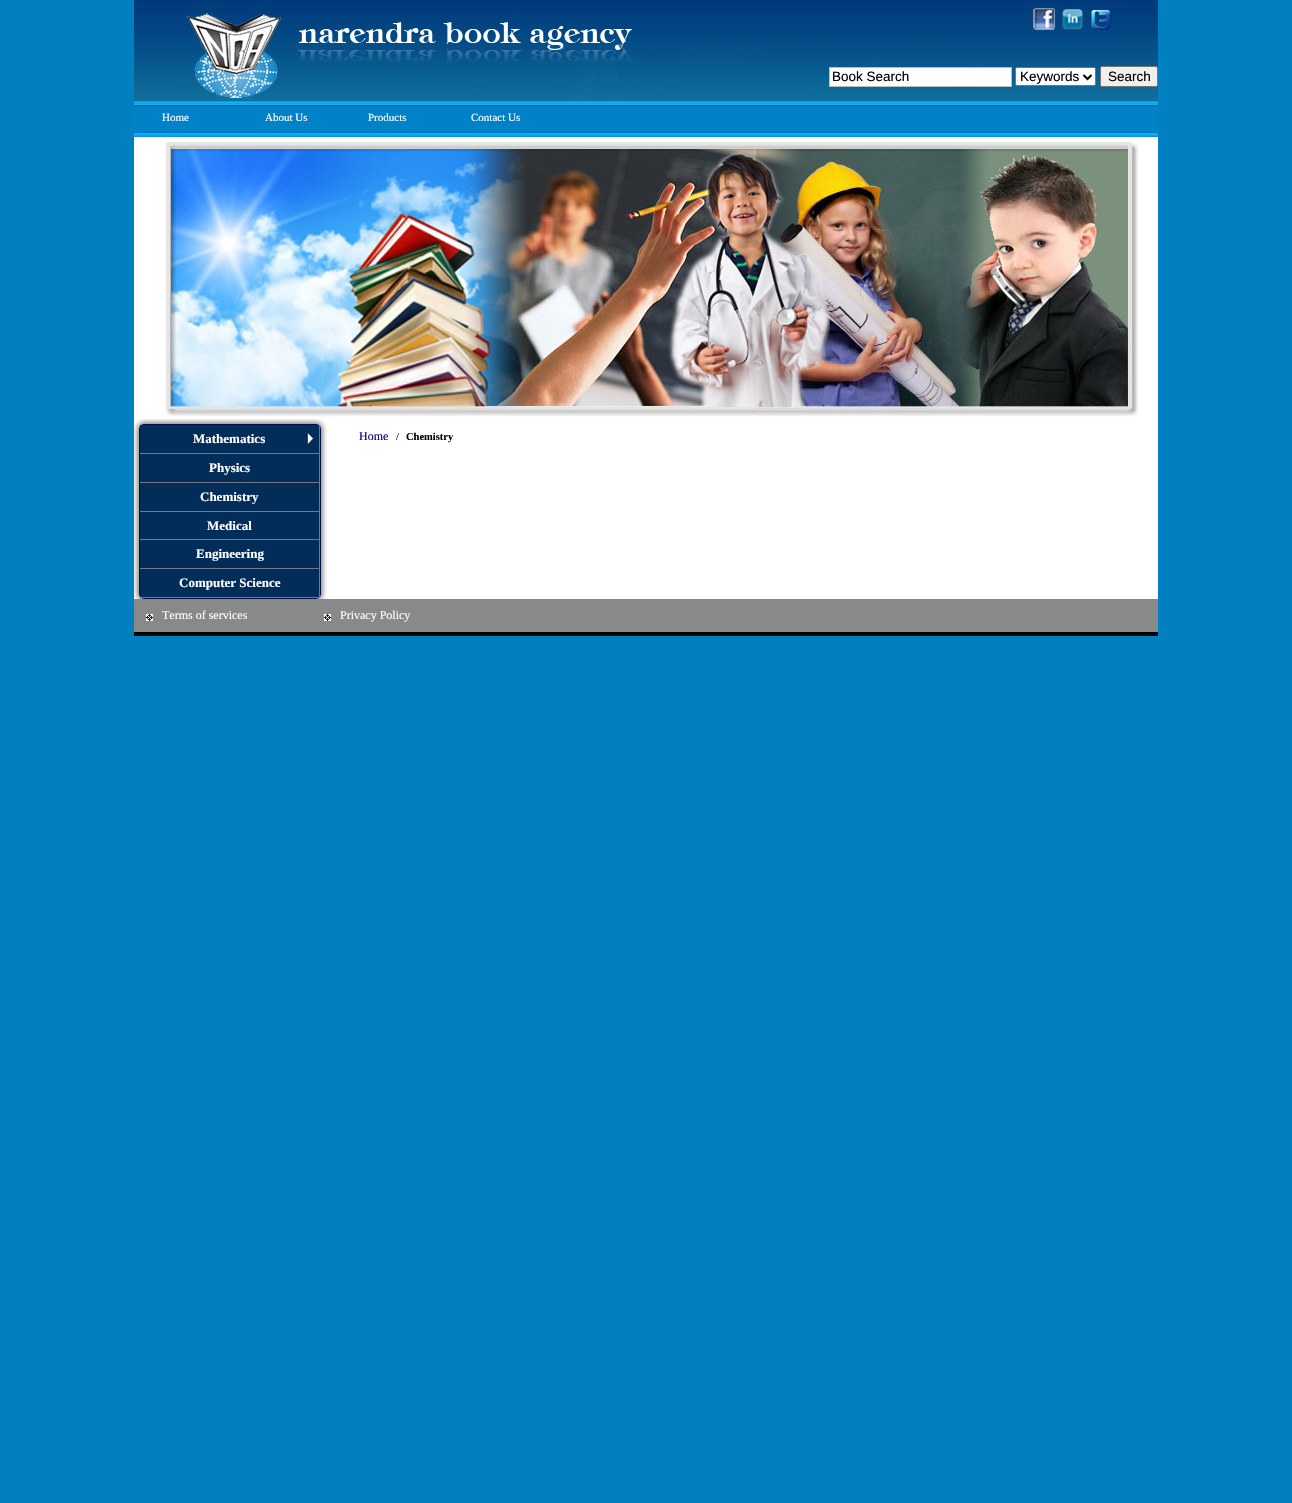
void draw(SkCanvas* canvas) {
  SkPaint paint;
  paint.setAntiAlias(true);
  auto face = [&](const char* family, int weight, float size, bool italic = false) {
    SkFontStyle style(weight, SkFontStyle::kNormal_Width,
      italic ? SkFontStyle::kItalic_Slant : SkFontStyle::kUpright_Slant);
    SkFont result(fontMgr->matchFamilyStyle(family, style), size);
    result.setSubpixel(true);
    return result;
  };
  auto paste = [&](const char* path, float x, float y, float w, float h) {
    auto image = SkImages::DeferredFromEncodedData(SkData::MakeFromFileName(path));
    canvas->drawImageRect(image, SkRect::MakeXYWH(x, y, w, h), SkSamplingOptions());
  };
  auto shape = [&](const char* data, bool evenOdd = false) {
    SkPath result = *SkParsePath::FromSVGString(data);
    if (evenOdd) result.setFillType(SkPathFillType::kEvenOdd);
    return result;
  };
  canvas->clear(0xff0080c0);
  paste("img/1.png", 134, 0, 1024, 101);
  paint.setColor(0xffffffff);
  canvas->drawRect(SkRect::MakeXYWH(829.5f, 67.5f, 182, 19), paint);
  paint.setStroke(true);
  paint.setStrokeWidth(1);
  paint.setColor(0xffbbbbbb);
  canvas->drawRect(SkRect::MakeXYWH(829.5f, 67.5f, 182, 19), paint);
  paint.setStroke(false);
  paint.setColor(0xffffffff);
  canvas->drawRoundRect(SkRect::MakeXYWH(1015.5f, 67.5f, 80, 18), 1.5f, 1.5f, paint);
  paint.setStroke(true);
  paint.setColor(0xff767676);
  canvas->drawRoundRect(SkRect::MakeXYWH(1015.5f, 67.5f, 80, 18), 1.5f, 1.5f, paint);
  paint.setStrokeWidth(2);
  paint.setColor(0xff000000);
  canvas->drawPath(shape("M1083.5 75L1087.5 79L1091.5 75"), paint);
  paint.setStroke(false);
  paint.setColor(0xffefefef);
  canvas->drawRoundRect(SkRect::MakeXYWH(1100.5f, 66.5f, 57, 20), 1.5f, 1.5f, paint);
  paint.setStroke(true);
  paint.setStrokeWidth(1);
  paint.setColor(0xff767676);
  canvas->drawRoundRect(SkRect::MakeXYWH(1100.5f, 66.5f, 57, 20), 1.5f, 1.5f, paint);
  paste("img/2.png", 134, 101, 1024, 36);
  paint.setStroke(false);
  paint.setColor(0xffffffff);
  canvas->drawRect(SkRect::MakeXYWH(134, 419, 1024, 180), paint);
  paint.setColor(0xff888888);
  paint.setMaskFilter(SkMaskFilter::MakeBlur(kNormal_SkBlurStyle, 2.5f));
  canvas->drawRoundRect(SkRect::MakeXYWH(137, 422, 186, 179), 7, 7, paint);
  paint.setMaskFilter(nullptr);
  paste("img/3.png", 134, 137, 1024, 282);
  paint.setStroke(true);
  paint.setColor(0xff050f45);
  canvas->drawRoundRect(SkRect::MakeXYWH(139.5f, 424.5f, 181, 174), 4.5f, 4.5f, paint);
  paint.setStroke(false);
  paint.setColor(0xff012d58);
  canvas->drawRect(SkRect::MakeXYWH(140, 425, 179, 28), paint);
  paste("img/4.png", 307, 433, 7, 11);
  {
    const struct { float x, y, w, h; SkColor color; } items[] = {
      {319, 425, 1, 173, 0xff777788},
      {140, 453, 180, 1, 0xff777788},
      {140, 454, 179, 28, 0xff012d58},
      {140, 482, 180, 1, 0xff777788},
      {140, 483, 179, 28, 0xff012d58},
      {140, 511, 180, 1, 0xff777788},
      {140, 512, 179, 27, 0xff012d58},
      {140, 539, 180, 1, 0xff777788},
      {140, 540, 179, 28, 0xff012d58},
      {140, 568, 180, 1, 0xff777788},
      {140, 569, 179, 28, 0xff012d58},
      {140, 597, 180, 1, 0xff777788},
    };
    for (auto [x, y, w, h, color] : items) {
      paint.setColor(color);
      canvas->drawRect(SkRect::MakeXYWH(x, y, w, h), paint);
    }
  }
  paste("img/5.png", 134, 599, 1024, 37);
  paste("img/6.png", 146, 614, 7, 7);
  paste("img/6.png", 324, 614, 7, 7);
  auto f0 = face("Liberation Sans", 400, 13.5f);
  paint.setColor(0xff000000);
  {
    const struct { const char* s; float x, y; } items[] = {
      {"Book Search", 832, 81},
      {"Keywords", 1020, 81},
      {"Search", 1108, 81},
    };
    for (auto [s, x, y] : items) {
      canvas->drawString(s, x, y, f0, paint);
    }
  }
  auto f1 = face("Liberation Serif", 400, 11);
  paint.setColor(0xffffffff);
  {
    const struct { const char* s; float x, y; } items[] = {
      {"Home", 162, 121},
      {"About Us", 265, 121},
      {"Products", 368, 121},
      {"Contact Us", 471, 121},
    };
    for (auto [s, x, y] : items) {
      canvas->drawString(s, x, y, f1, paint);
    }
  }
  auto f2 = face("Liberation Serif", 700, 13);
  {
    const struct { const char* s; float x, y; } items[] = {
      {"Mathematics", 193, 443},
      {"Physics", 209, 472},
      {"Chemistry", 200, 501},
      {"Medical", 207, 530},
      {"Engineering", 196, 558},
      {"Computer Science", 179, 587},
    };
    for (auto [s, x, y] : items) {
      canvas->drawString(s, x, y, f2, paint);
    }
  }
  auto f3 = face("Liberation Serif", 400, 12);
  paint.setColor(0xff000080);
  canvas->drawString("Home", 359, 440, f3, paint);
  auto f4 = face("Liberation Serif", 400, 10.5f);
  paint.setColor(0xff000000);
  canvas->drawString("/", 396, 440, f4, paint);
  auto f5 = face("Liberation Serif", 700, 10.5f);
  canvas->drawString("Chemistry", 406, 440, f5, paint);
  paint.setColor(0xffffffff);
  canvas->drawString("Terms of services", 162, 619, f3, paint);
  canvas->drawString("Privacy Policy", 340, 619, f3, paint);
}
